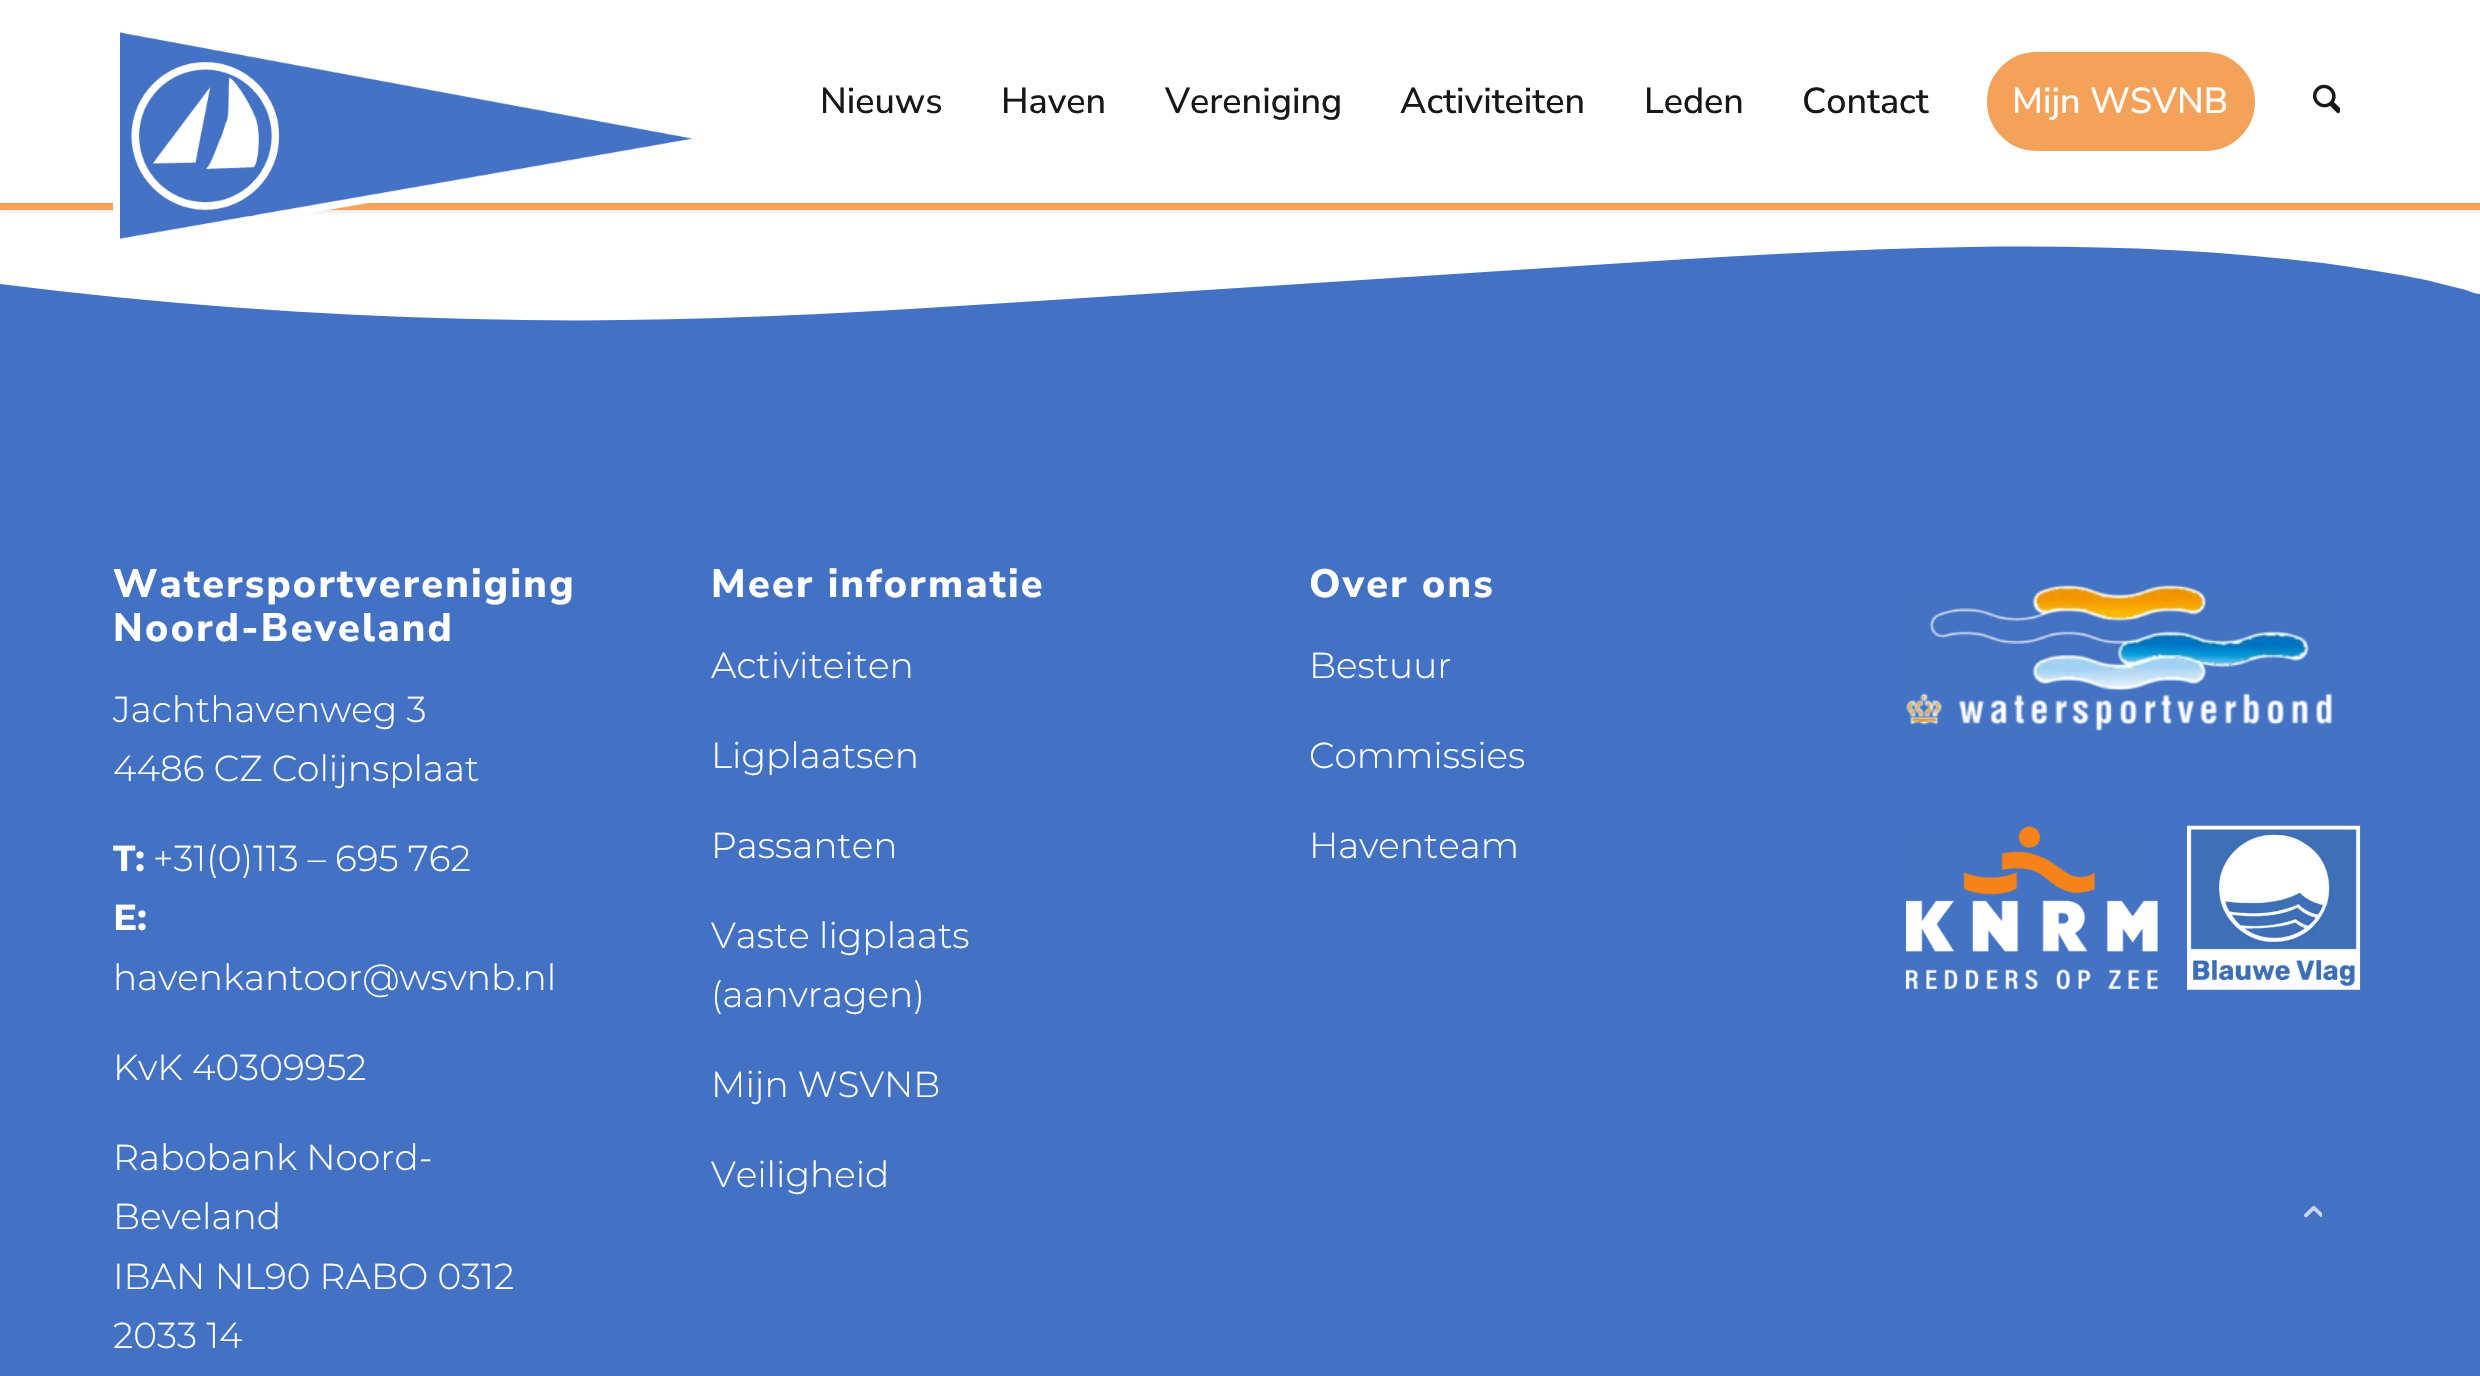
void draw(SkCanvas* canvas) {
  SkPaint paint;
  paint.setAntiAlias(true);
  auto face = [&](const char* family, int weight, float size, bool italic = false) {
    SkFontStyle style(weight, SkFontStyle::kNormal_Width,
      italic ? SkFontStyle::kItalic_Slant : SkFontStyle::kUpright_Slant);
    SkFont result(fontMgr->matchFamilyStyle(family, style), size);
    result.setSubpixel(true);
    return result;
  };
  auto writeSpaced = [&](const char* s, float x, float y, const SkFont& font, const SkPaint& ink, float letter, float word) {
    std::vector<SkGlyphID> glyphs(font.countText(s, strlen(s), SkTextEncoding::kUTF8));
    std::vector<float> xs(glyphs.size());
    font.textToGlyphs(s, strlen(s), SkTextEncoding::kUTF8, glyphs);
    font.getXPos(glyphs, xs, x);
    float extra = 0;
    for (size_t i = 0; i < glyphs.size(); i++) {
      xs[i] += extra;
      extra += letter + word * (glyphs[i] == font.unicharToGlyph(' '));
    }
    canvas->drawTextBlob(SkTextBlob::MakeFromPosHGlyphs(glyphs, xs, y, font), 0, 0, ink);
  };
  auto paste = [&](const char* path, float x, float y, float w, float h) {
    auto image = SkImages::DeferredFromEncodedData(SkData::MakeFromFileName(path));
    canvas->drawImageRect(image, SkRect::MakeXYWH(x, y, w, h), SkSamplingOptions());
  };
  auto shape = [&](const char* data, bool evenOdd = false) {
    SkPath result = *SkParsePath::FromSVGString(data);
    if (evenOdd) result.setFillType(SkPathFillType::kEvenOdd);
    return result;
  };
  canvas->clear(0xffffffff);
  paint.setColor(0x1a000000);
  paint.setMaskFilter(SkMaskFilter::MakeBlur(kNormal_SkBlurStyle, 2));
  canvas->drawRect(SkRect::MakeXYWH(-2, -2, 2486, 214), paint);
  paint.setMaskFilter(nullptr);
  {
    const struct { float x, y, w, h; SkColor color; } items[] = {
      {0, 203, 2480, 7, 0xfff4a159},
      {0, 0, 2480, 203, 0xffffffff},
      {0, 246, 2480, 1130, 0xff4372c4},
    };
    for (auto [x, y, w, h, color] : items) {
      paint.setColor(color);
      canvas->drawRect(SkRect::MakeXYWH(x, y, w, h), paint);
    }
  }
  canvas->save();
  canvas->clipRect(SkRect::MakeXYWH(0, 234, 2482, 110));
  paint.setColor(0xffffffff);
  canvas->drawPath(shape("M0 284V230H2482V294C2476 294 2471 292 2466 290L2426 280C2392 273 2358 268 2323 263C2206 249 2088 245 1970 247C1844 249 1719 257 1593 265L1006 303C878 311 750 319 622 320C572 321 522 320 472 319C314 315 156 304 0 284Z"), paint);
  canvas->restore();
  paste("img/1.png", 113, 32, 580, 208);
  paint.setColor(0xfff4a159);
  canvas->drawRoundRect(SkRect::MakeXYWH(1989.5f, 54.5f, 263, 94), 47, 47, paint);
  paint.setStroke(true);
  paint.setStrokeWidth(5);
  canvas->drawRoundRect(SkRect::MakeXYWH(1989.5f, 54.5f, 263, 94), 47, 47, paint);
  paste("img/2.png", 2313, 84, 27, 30);
  paste("img/3.png", 1906, 585, 427, 146);
  paste("img/4.png", 1905, 825, 253, 165);
  paste("img/5.png", 2187, 825, 174, 165);
  paste("img/6.png", 2304, 1205, 18, 13);
  auto f0 = face("Nunito Sans", 500, 36);
  paint.setStroke(false);
  paint.setColor(0xff171717);
  {
    const struct { const char* s; float x, y; } items[] = {
      {"Nieuws", 820, 113},
      {"Haven", 1001, 113},
      {"Vereniging", 1165, 113},
      {"Activiteiten", 1400, 113},
      {"Leden", 1644, 113},
      {"Contact", 1802, 113},
    };
    for (auto [s, x, y] : items) {
      canvas->drawString(s, x, y, f0, paint);
    }
  }
  paint.setColor(0xffffffff);
  canvas->drawString("Mijn WSVNB", 2012, 113, f0, paint);
  auto f1 = face("Nunito Sans", 800, 39.6f);
  writeSpaced("Watersportvereniging", 113, 597, f1, paint, 2.25f, 0);
  writeSpaced("Noord-Beveland", 113, 641, f1, paint, 2.25f, 0);
  auto f2 = face("Montserrat", 300, 36);
  canvas->drawString("Jachthavenweg 3", 113, 722, f2, paint);
  canvas->drawString("4486 CZ Colijnsplaat", 113, 781, f2, paint);
  canvas->save();
  canvas->clipRect(SkRect::MakeXYWH(113, 529, 463, 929));
  auto f3 = face("Montserrat", 700, 36);
  canvas->drawString("T:", 113, 871, f3, paint);
  canvas->restore();
  canvas->drawString("+31(0)113 – 695 762", 153, 871, f2, paint);
  canvas->drawString("E:", 113, 930, f3, paint);
  {
    const struct { const char* s; float x, y; } items[] = {
      {"havenkantoor@wsvnb.nl", 113, 990},
      {"KvK 40309952", 113, 1080},
      {"Rabobank Noord-", 113, 1170},
      {"Beveland", 113, 1229},
      {"IBAN NL90 RABO 0312", 113, 1289},
      {"2033 14", 113, 1348},
    };
    for (auto [s, x, y] : items) {
      canvas->drawString(s, x, y, f2, paint);
    }
  }
  writeSpaced("Meer informatie", 711, 597, f1, paint, 2.25f, 0);
  {
    const struct { const char* s; float x, y; } items[] = {
      {"Activiteiten", 711, 678},
      {"Ligplaatsen", 711, 768},
      {"Passanten", 711, 858},
      {"Vaste ligplaats", 711, 948},
      {"(aanvragen)", 711, 1007},
      {"Mijn WSVNB", 711, 1097},
      {"Veiligheid", 711, 1187},
    };
    for (auto [s, x, y] : items) {
      canvas->drawString(s, x, y, f2, paint);
    }
  }
  writeSpaced("Over ons", 1309, 597, f1, paint, 2.25f, 0);
  {
    const struct { const char* s; float x, y; } items[] = {
      {"Bestuur", 1309, 678},
      {"Commissies", 1309, 768},
      {"Haventeam", 1309, 858},
    };
    for (auto [s, x, y] : items) {
      canvas->drawString(s, x, y, f2, paint);
    }
  }
}
